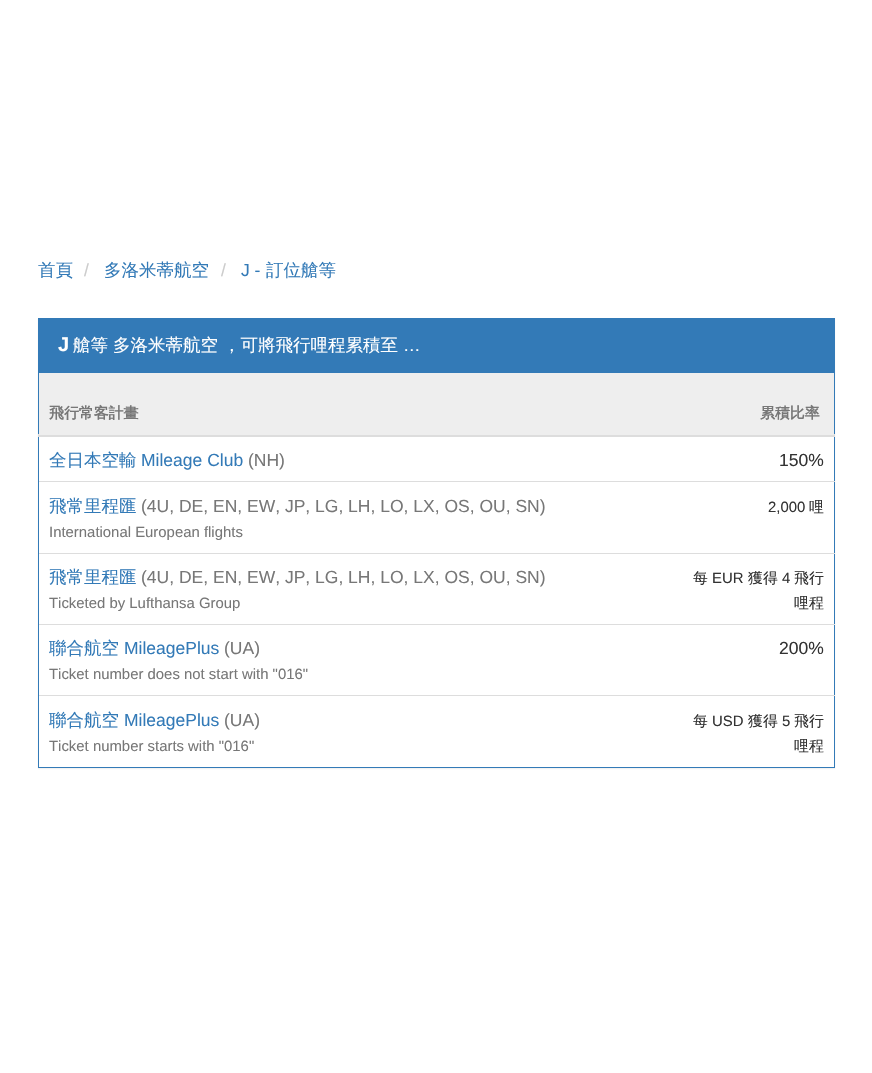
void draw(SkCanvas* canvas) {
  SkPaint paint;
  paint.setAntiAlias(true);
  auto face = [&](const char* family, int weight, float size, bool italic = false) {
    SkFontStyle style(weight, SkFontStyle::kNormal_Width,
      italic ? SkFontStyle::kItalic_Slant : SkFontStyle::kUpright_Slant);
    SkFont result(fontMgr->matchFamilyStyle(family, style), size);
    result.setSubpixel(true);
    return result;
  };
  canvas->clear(0xffffffff);
  paint.setColor(0x0d000000);
  paint.setMaskFilter(SkMaskFilter::MakeBlur(kNormal_SkBlurStyle, 0.5f));
  canvas->drawRect(SkRect::MakeXYWH(38, 319, 797, 450), paint);
  paint.setMaskFilter(nullptr);
  paint.setColor(0xffffffff);
  canvas->drawRect(SkRect::MakeXYWH(39, 437, 795, 330), paint);
  paint.setStroke(true);
  paint.setStrokeWidth(1);
  paint.setColor(0xff337ab7);
  canvas->drawRect(SkRect::MakeXYWH(38.5f, 318.5f, 796, 449), paint);
  paint.setStroke(false);
  {
    const struct { float x, y, w, h; SkColor color; } items[] = {
      {39, 319, 795, 54, 0xff337ab7},
      {38, 434, 797, 3, 0xffdddddd},
      {39, 373, 795, 62, 0xffeeeeee},
      {39, 481, 796, 1, 0xffdddddd},
      {39, 553, 796, 1, 0xffdddddd},
      {39, 624, 796, 1, 0xffdddddd},
      {39, 695, 796, 1, 0xffdddddd},
    };
    for (auto [x, y, w, h, color] : items) {
      paint.setColor(color);
      canvas->drawRect(SkRect::MakeXYWH(x, y, w, h), paint);
    }
  }
  auto f0 = face("WenQuanYi Zen Hei", 500, 17.5f);
  paint.setColor(0xff337ab7);
  canvas->drawString("首頁", 38, 276, f0, paint);
  auto f1 = face("Liberation Sans", 400, 17.5f);
  paint.setColor(0xffcccccc);
  canvas->drawString("/", 84, 276, f1, paint);
  paint.setColor(0xff337ab7);
  canvas->drawString("多洛米蒂航空", 104, 276, f0, paint);
  paint.setColor(0xffcccccc);
  canvas->drawString("/", 221, 276, f1, paint);
  paint.setColor(0xff337ab7);
  canvas->drawString("J -", 241, 276, f1, paint);
  canvas->drawString("訂位艙等", 266, 276, f0, paint);
  auto f2 = face("Liberation Sans", 700, 20);
  paint.setColor(0xffffffff);
  canvas->drawString("J", 58, 351, f2, paint);
  {
    const struct { const char* s; float x, y; } items[] = {
      {"艙等", 73, 351},
      {"多洛米蒂航空", 113, 351},
      {"，可將飛行哩程累積至", 223, 351},
    };
    for (auto [s, x, y] : items) {
      canvas->drawString(s, x, y, f0, paint);
    }
  }
  canvas->drawString("…", 403, 351, f1, paint);
  auto f3 = face("WenQuanYi Zen Hei", 700, 14.9f);
  paint.setColor(0xff777777);
  canvas->drawString("飛行常客計畫", 49, 418, f3, paint);
  canvas->drawString("累積比率", 760, 418, f3, paint);
  paint.setColor(0xff337ab7);
  canvas->drawString("全日本空輸", 49, 466, f0, paint);
  canvas->drawString("Mileage Club", 141, 466, f1, paint);
  paint.setColor(0xff777777);
  canvas->drawString("(NH)", 248, 466, f1, paint);
  paint.setColor(0xff333333);
  canvas->drawString("150%", 779, 466, f1, paint);
  paint.setColor(0xff337ab7);
  canvas->drawString("飛常里程匯", 49, 512, f0, paint);
  paint.setColor(0xff777777);
  canvas->drawString("(4U, DE, EN, EW, JP, LG, LH, LO, LX, OS, OU, SN)", 141, 512, f1, paint);
  auto f4 = face("Liberation Sans", 400, 14.9f);
  canvas->drawString("International European flights", 49, 537, f4, paint);
  paint.setColor(0xff333333);
  canvas->drawString("2,000", 768, 512, f4, paint);
  auto f5 = face("WenQuanYi Zen Hei", 500, 14.9f);
  canvas->drawString("哩", 809, 512, f5, paint);
  paint.setColor(0xff337ab7);
  canvas->drawString("飛常里程匯", 49, 583, f0, paint);
  paint.setColor(0xff777777);
  canvas->drawString("(4U, DE, EN, EW, JP, LG, LH, LO, LX, OS, OU, SN)", 141, 583, f1, paint);
  canvas->drawString("Ticketed by Lufthansa Group", 49, 608, f4, paint);
  paint.setColor(0xff333333);
  canvas->drawString("每", 693, 583, f5, paint);
  canvas->drawString("EUR", 712, 583, f4, paint);
  canvas->drawString("獲得", 748, 583, f5, paint);
  canvas->drawString("4", 782, 583, f4, paint);
  canvas->drawString("飛行", 794, 583, f5, paint);
  canvas->drawString("哩程", 794, 608, f5, paint);
  paint.setColor(0xff337ab7);
  canvas->drawString("聯合航空", 49, 654, f0, paint);
  canvas->drawString("MileagePlus", 124, 654, f1, paint);
  paint.setColor(0xff777777);
  canvas->drawString("(UA)", 224, 654, f1, paint);
  canvas->drawString("Ticket number does not start with \"016\"", 49, 679, f4, paint);
  paint.setColor(0xff333333);
  canvas->drawString("200%", 779, 654, f1, paint);
  paint.setColor(0xff337ab7);
  canvas->drawString("聯合航空", 49, 726, f0, paint);
  canvas->drawString("MileagePlus", 124, 726, f1, paint);
  paint.setColor(0xff777777);
  canvas->drawString("(UA)", 224, 726, f1, paint);
  canvas->drawString("Ticket number starts with \"016\"", 49, 751, f4, paint);
  paint.setColor(0xff333333);
  canvas->drawString("每", 693, 726, f5, paint);
  canvas->drawString("USD", 712, 726, f4, paint);
  canvas->drawString("獲得", 748, 726, f5, paint);
  canvas->drawString("5", 782, 726, f4, paint);
  canvas->drawString("飛行", 794, 726, f5, paint);
  canvas->drawString("哩程", 794, 751, f5, paint);
}
